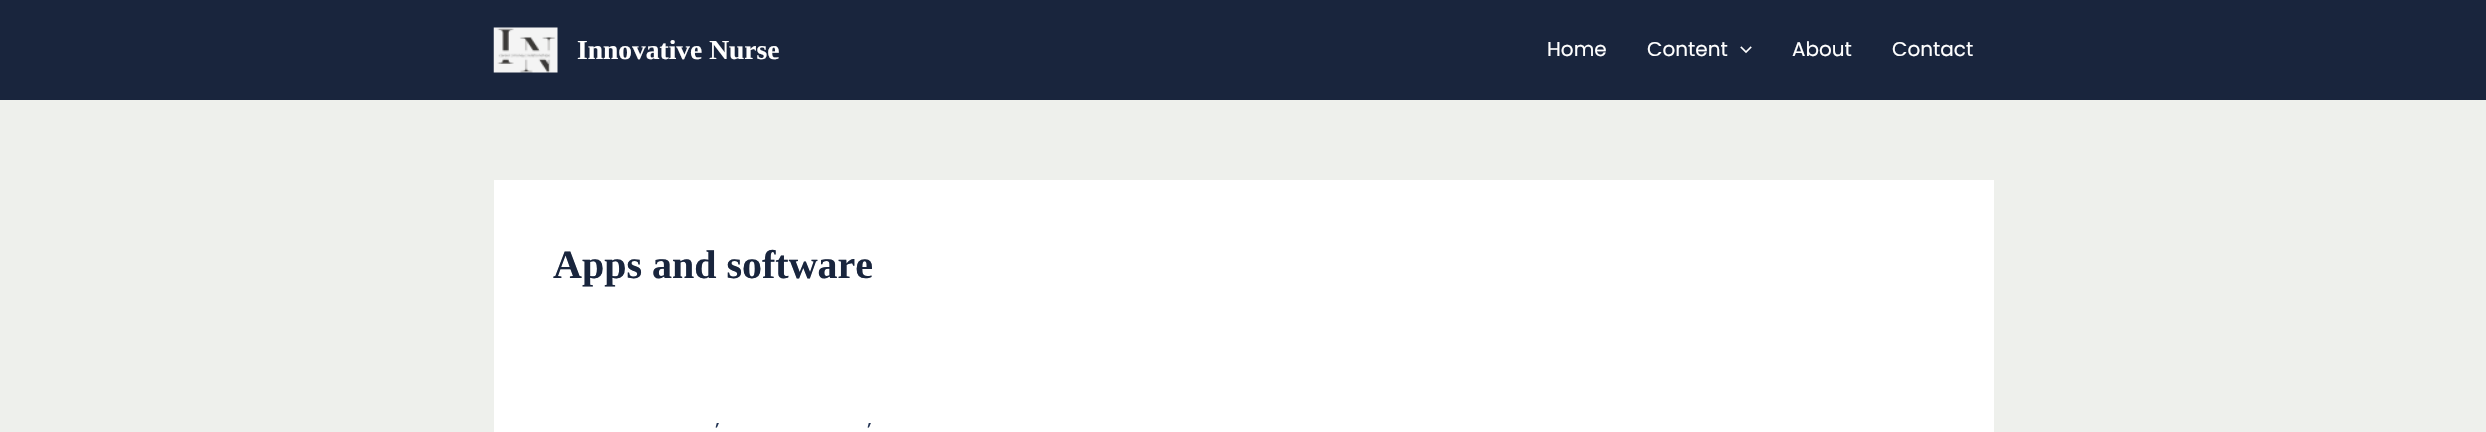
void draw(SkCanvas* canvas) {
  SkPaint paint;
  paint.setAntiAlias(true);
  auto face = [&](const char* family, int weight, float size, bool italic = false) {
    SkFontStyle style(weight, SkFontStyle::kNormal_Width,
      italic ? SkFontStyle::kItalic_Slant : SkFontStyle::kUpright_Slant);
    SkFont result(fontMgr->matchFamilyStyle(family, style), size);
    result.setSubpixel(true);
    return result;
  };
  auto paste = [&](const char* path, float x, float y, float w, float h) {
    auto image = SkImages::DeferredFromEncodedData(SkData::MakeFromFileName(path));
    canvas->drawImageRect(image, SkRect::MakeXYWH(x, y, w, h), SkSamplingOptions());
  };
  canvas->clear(0xffeef0ec);
  paint.setColor(0xff19253d);
  canvas->drawRect(SkRect::MakeXYWH(0, 0, 2486, 100), paint);
  paste("img/1.png", 493, 27, 65, 46);
  paste("img/2.png", 1740, 46, 12, 8);
  paint.setColor(0xffffffff);
  canvas->drawRect(SkRect::MakeXYWH(494, 180, 1500, 252), paint);
  auto f0 = face("Liberation Serif", 700, 27.5f);
  canvas->drawString("Innovative Nurse", 577, 59, f0, paint);
  auto f1 = face("Poppins", 400, 20);
  {
    const struct { const char* s; float x, y; } items[] = {
      {"Home", 1547, 56},
      {"Content", 1647, 56},
      {"About", 1792, 56},
      {"Contact", 1892, 56},
    };
    for (auto [s, x, y] : items) {
      canvas->drawString(s, x, y, f1, paint);
    }
  }
  auto f2 = face("Liberation Serif", 700, 40);
  paint.setColor(0xff19253d);
  canvas->drawString("Apps and software", 553, 278, f2, paint);
  paint.setColor(0xff233454);
  canvas->drawString("’", 715, 437, f1, paint);
  canvas->drawString("’", 867, 437, f1, paint);
}
